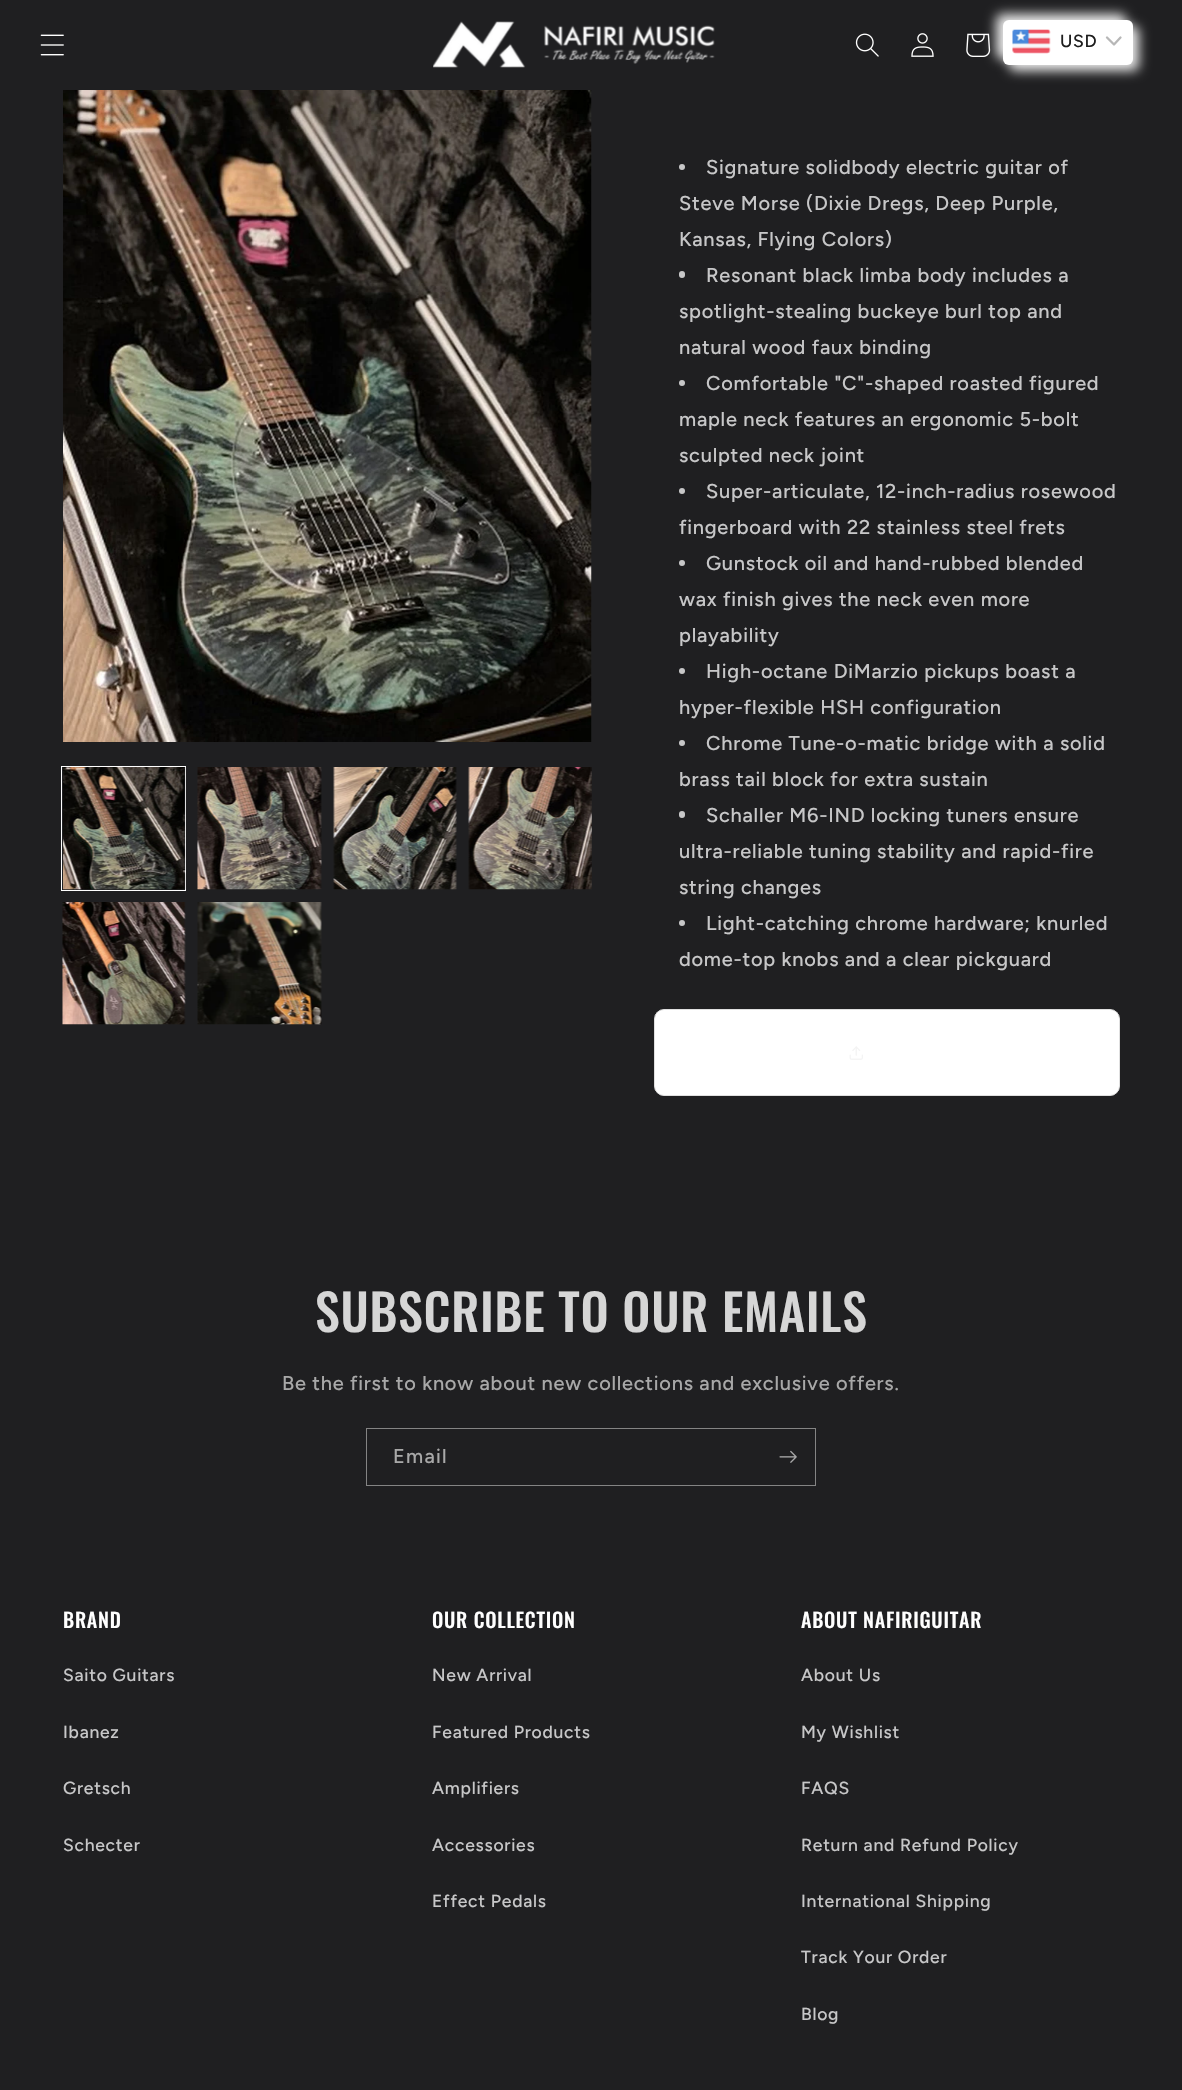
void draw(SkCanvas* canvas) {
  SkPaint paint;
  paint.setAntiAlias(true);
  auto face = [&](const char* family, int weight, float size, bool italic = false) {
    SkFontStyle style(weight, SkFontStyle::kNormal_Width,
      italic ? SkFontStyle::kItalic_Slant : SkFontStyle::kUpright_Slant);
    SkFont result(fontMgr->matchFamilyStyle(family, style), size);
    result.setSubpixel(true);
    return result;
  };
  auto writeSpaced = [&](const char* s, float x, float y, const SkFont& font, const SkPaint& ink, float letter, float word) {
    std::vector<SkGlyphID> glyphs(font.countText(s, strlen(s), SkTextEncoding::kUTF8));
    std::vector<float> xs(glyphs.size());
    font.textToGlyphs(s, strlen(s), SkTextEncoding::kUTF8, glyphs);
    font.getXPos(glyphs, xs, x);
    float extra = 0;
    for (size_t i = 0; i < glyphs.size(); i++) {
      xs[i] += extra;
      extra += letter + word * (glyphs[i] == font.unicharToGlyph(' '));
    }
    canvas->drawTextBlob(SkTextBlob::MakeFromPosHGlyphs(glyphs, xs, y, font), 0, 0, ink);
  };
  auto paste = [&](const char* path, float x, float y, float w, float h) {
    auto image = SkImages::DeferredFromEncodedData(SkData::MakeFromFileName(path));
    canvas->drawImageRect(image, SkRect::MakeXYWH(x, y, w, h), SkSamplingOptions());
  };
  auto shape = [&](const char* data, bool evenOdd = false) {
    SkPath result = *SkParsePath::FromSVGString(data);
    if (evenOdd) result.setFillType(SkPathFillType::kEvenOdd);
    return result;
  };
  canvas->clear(0xff1f1f21);
  paste("img/1.png", 40, 34, 24, 22);
  paste("img/2.png", 433, 21, 282, 47);
  paste("img/3.png", 855, 33, 24, 24);
  paste("img/4.png", 911, 33, 23, 24);
  paste("img/5.png", 966, 33, 25, 24);
  paint.setColor(0xffe8e8e8);
  paint.setMaskFilter(SkMaskFilter::MakeBlur(kNormal_SkBlurStyle, 6));
  canvas->drawRoundRect(SkRect::MakeXYWH(996, 14, 130, 45), 6, 6, paint);
  paint.setMaskFilter(nullptr);
  paint.setMaskFilter(SkMaskFilter::MakeBlur(kNormal_SkBlurStyle, 6));
  canvas->drawRoundRect(SkRect::MakeXYWH(1009, 26, 130, 45), 6, 6, paint);
  paint.setMaskFilter(nullptr);
  paint.setColor(0xffffffff);
  canvas->drawRoundRect(SkRect::MakeXYWH(1003, 20, 130, 45), 6, 6, paint);
  paste("img/6.png", 1012, 29, 39, 25);
  paint.setStroke(true);
  paint.setStrokeWidth(2.3f);
  paint.setStrokeCap(SkPaint::kRound_Cap);
  paint.setStrokeJoin(SkPaint::kRound_Join);
  paint.setColor(0xffb7b7b7);
  canvas->drawPath(shape("M1107 37.5L1114 44.5L1120.5 37.5"), paint);
  paste("img/7.png", 63, 90, 529, 652);
  paint.setStrokeWidth(1);
  paint.setStrokeCap(SkPaint::kButt_Cap);
  paint.setStrokeJoin(SkPaint::kMiter_Join);
  paint.setColor(0xffffffff);
  canvas->drawRect(SkRect::MakeXYWH(61.5f, 766.5f, 124, 124), paint);
  paste("img/8.png", 63, 767, 123, 123);
  paste("img/9.png", 197, 767, 125, 123);
  paste("img/10.png", 333, 767, 124, 123);
  paste("img/11.png", 468, 767, 124, 123);
  paste("img/12.png", 62, 902, 124, 123);
  paste("img/13.png", 197, 902, 125, 123);
  paint.setStroke(false);
  paint.setColor(0xffc7c7c8);
  canvas->drawCircle(682, 167, 3, paint);
  canvas->drawRoundRect(SkRect::MakeXYWH(679, 271, 6, 7), 3, 3, paint);
  canvas->drawCircle(682, 383, 3, paint);
  canvas->drawCircle(682, 491, 3, paint);
  canvas->drawCircle(682, 563, 3, paint);
  canvas->drawCircle(682, 671, 3, paint);
  canvas->drawCircle(682, 743, 3, paint);
  canvas->drawRoundRect(SkRect::MakeXYWH(679, 811, 6, 7), 3, 3, paint);
  canvas->drawCircle(682, 923, 3, paint);
  paint.setColor(0xffffffff);
  canvas->drawRoundRect(SkRect::MakeXYWH(654.5f, 1009.5f, 465, 86), 9.5f, 9.5f, paint);
  paint.setStroke(true);
  paint.setColor(0xffe0e0e0);
  canvas->drawRoundRect(SkRect::MakeXYWH(654.5f, 1009.5f, 465, 86), 9.5f, 9.5f, paint);
  paste("img/14.png", 849, 1046, 14, 14);
  paint.setColor(0xff848484);
  canvas->drawRect(SkRect::MakeXYWH(366.5f, 1428.5f, 449, 57), paint);
  paste("img/15.png", 779, 1450, 18, 13);
  auto f0 = face("Figtree", 500, 17.5f);
  paint.setStroke(false);
  paint.setColor(0xff1e1e1e);
  writeSpaced("USD", 1060, 47, f0, paint, 0.75f, 0);
  auto f1 = face("Figtree", 500, 20);
  paint.setColor(0xffc7c7c8);
  {
    const struct { const char* s; float x, y; } items[] = {
      {"Signature solidbody electric guitar of", 706, 174},
      {"Steve Morse (Dixie Dregs, Deep Purple,", 679, 210},
      {"Kansas, Flying Colors)", 679, 246},
      {"Resonant black limba body includes a", 706, 282},
      {"spotlight-stealing buckeye burl top and", 679, 318},
      {"natural wood faux binding", 679, 354},
      {"Comfortable \"C\"-shaped roasted figured", 706, 390},
      {"maple neck features an ergonomic 5-bolt", 679, 426},
      {"sculpted neck joint", 679, 462},
      {"Super-articulate, 12-inch-radius rosewood", 706, 498},
      {"fingerboard with 22 stainless steel frets", 679, 534},
      {"Gunstock oil and hand-rubbed blended", 706, 570},
      {"wax finish gives the neck even more", 679, 606},
      {"playability", 679, 642},
      {"High-octane DiMarzio pickups boast a", 706, 678},
      {"hyper-flexible HSH configuration", 679, 714},
      {"Chrome Tune-o-matic bridge with a solid", 706, 750},
      {"brass tail block for extra sustain", 679, 786},
      {"Schaller M6-IND locking tuners ensure", 706, 822},
      {"ultra-reliable tuning stability and rapid-fire", 679, 858},
      {"string changes", 679, 894},
      {"Light-catching chrome hardware; knurled", 706, 930},
      {"dome-top knobs and a clear pickguard", 679, 966},
    };
    for (auto [s, x, y] : items) {
      writeSpaced(s, x, y, f1, paint, 0.75f, 0);
    }
  }
  auto f2 = face("Oswald", 500, 50);
  paint.setColor(0xffd6d6d6);
  writeSpaced("SUBSCRIBE TO OUR EMAILS", 315, 1332, f2, paint, 0.75f, 0);
  paint.setColor(0xffa8a8a8);
  writeSpaced("Be the first to know about new collections and exclusive offers.", 282, 1390, f1, paint, 0.75f, 0);
  writeSpaced("Email", 393, 1463, f1, paint, 1.25f, 0);
  auto f3 = face("Oswald", 500, 20);
  paint.setColor(0xffffffff);
  writeSpaced("BRAND", 63, 1628, f3, paint, 0.75f, 0);
  paint.setColor(0xffc7c7c8);
  {
    const struct { const char* s; float x, y; } items[] = {
      {"Saito Guitars", 63, 1681},
      {"Ibanez", 63, 1738},
      {"Gretsch", 63, 1794},
      {"Schecter", 63, 1851},
    };
    for (auto [s, x, y] : items) {
      writeSpaced(s, x, y, f0, paint, 0.75f, 0);
    }
  }
  paint.setColor(0xffffffff);
  writeSpaced("OUR COLLECTION", 432, 1628, f3, paint, 0.75f, 0);
  paint.setColor(0xffc7c7c8);
  {
    const struct { const char* s; float x, y; } items[] = {
      {"New Arrival", 432, 1681},
      {"Featured Products", 432, 1738},
      {"Amplifiers", 432, 1794},
      {"Accessories", 432, 1851},
      {"Effect Pedals", 432, 1907},
    };
    for (auto [s, x, y] : items) {
      writeSpaced(s, x, y, f0, paint, 0.75f, 0);
    }
  }
  paint.setColor(0xffffffff);
  writeSpaced("ABOUT NAFIRIGUITAR", 801, 1628, f3, paint, 0.75f, 0);
  paint.setColor(0xffc7c7c8);
  {
    const struct { const char* s; float x, y; } items[] = {
      {"About Us", 801, 1681},
      {"My Wishlist", 801, 1738},
      {"FAQS", 801, 1794},
      {"Return and Refund Policy", 801, 1851},
      {"International Shipping", 801, 1907},
      {"Track Your Order", 801, 1963},
      {"Blog", 801, 2020},
    };
    for (auto [s, x, y] : items) {
      writeSpaced(s, x, y, f0, paint, 0.75f, 0);
    }
  }
}
